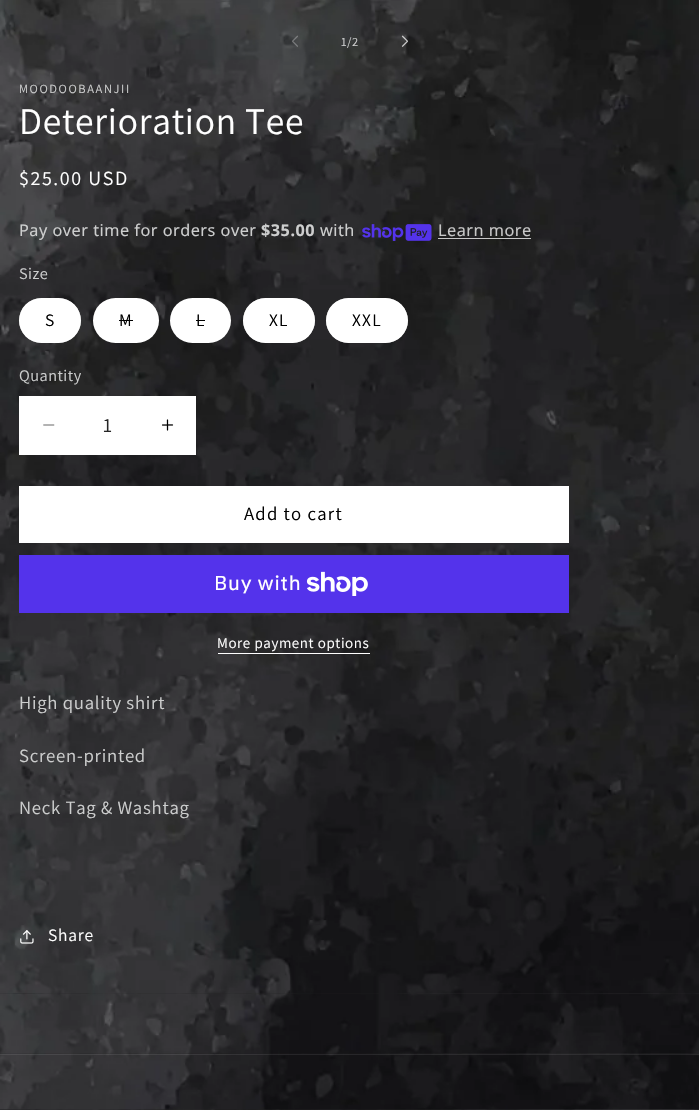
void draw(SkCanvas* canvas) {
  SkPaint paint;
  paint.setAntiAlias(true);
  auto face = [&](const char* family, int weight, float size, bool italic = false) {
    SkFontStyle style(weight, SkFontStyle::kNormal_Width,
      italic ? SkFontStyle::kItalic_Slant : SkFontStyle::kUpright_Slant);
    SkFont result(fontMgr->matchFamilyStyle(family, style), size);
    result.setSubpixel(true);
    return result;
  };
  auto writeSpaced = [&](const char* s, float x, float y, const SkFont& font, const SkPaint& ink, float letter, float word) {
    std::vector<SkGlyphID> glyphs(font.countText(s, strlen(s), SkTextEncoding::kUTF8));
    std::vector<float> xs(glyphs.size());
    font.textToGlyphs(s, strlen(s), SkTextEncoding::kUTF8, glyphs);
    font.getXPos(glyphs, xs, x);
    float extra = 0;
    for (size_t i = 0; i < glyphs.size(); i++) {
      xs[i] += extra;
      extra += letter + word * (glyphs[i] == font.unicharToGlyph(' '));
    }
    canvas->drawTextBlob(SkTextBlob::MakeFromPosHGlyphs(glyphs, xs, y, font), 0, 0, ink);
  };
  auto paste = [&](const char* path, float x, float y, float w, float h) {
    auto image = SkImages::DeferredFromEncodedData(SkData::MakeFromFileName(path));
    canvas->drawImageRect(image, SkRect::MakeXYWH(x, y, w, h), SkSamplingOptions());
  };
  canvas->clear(0xffffffff);
  paste("img/1.png", 0, 993, 699, 117);
  paste("img/2.png", 0, 0, 699, 994);
  paste("img/3.png", 292, 35, 6, 12);
  paste("img/4.png", 401, 35, 7, 12);
  paste("img/5.png", 362, 224, 70, 17);
  paint.setColor(0xbfffffff);
  canvas->drawRect(SkRect::MakeXYWH(438, 238, 93, 1), paint);
  paint.setColor(0xffffffff);
  canvas->drawRoundRect(SkRect::MakeXYWH(19, 298, 62, 45), 22.5f, 22.5f, paint);
  paint.setStroke(true);
  paint.setStrokeWidth(1);
  paint.setColor(0x8cffffff);
  canvas->drawRoundRect(SkRect::MakeXYWH(19.5f, 298.5f, 61, 44), 22, 22, paint);
  paint.setStroke(false);
  paint.setColor(0xffffffff);
  canvas->drawRoundRect(SkRect::MakeXYWH(93, 298, 66, 45), 22.5f, 22.5f, paint);
  paint.setStroke(true);
  paint.setColor(0x1affffff);
  canvas->drawRoundRect(SkRect::MakeXYWH(93.5f, 298.5f, 65, 44), 22, 22, paint);
  paint.setStroke(false);
  paint.setColor(0xff000000);
  canvas->drawRect(SkRect::MakeXYWH(119, 320, 14, 1), paint);
  paint.setColor(0xffffffff);
  canvas->drawRoundRect(SkRect::MakeXYWH(170, 298, 61, 45), 22.5f, 22.5f, paint);
  paint.setStroke(true);
  paint.setColor(0x1affffff);
  canvas->drawRoundRect(SkRect::MakeXYWH(170.5f, 298.5f, 60, 44), 22, 22, paint);
  paint.setStroke(false);
  paint.setColor(0xff000000);
  canvas->drawRect(SkRect::MakeXYWH(196, 320, 9, 1), paint);
  paint.setColor(0xffffffff);
  canvas->drawRoundRect(SkRect::MakeXYWH(243, 298, 72, 45), 22.5f, 22.5f, paint);
  paint.setStroke(true);
  paint.setColor(0x8cffffff);
  canvas->drawRoundRect(SkRect::MakeXYWH(243.5f, 298.5f, 71, 44), 22, 22, paint);
  paint.setStroke(false);
  paint.setColor(0xffffffff);
  canvas->drawRoundRect(SkRect::MakeXYWH(326, 298, 82, 45), 22.5f, 22.5f, paint);
  paint.setStroke(true);
  paint.setColor(0x8cffffff);
  canvas->drawRoundRect(SkRect::MakeXYWH(326.5f, 298.5f, 81, 44), 22, 22, paint);
  paint.setStroke(false);
  paint.setColor(0xffffffff);
  canvas->drawRect(SkRect::MakeXYWH(19, 396, 177, 59), paint);
  paste("img/6.png", 43, 424, 12, 2);
  paste("img/7.png", 162, 419, 12, 12);
  canvas->drawRect(SkRect::MakeXYWH(19, 486, 550, 57), paint);
  paint.setColor(0xff5433eb);
  canvas->drawRect(SkRect::MakeXYWH(19, 555, 550, 58), paint);
  paste("img/8.png", 306, 571, 62, 25);
  paint.setColor(0xffffffff);
  canvas->drawRect(SkRect::MakeXYWH(218, 653, 152, 1), paint);
  paste("img/9.png", 20, 930, 14, 14);
  paste("img/10.png", 0, 993, 699, 61);
  paste("img/11.png", 0, 1053, 699, 57);
  paint.setColor(0x14ffffff);
  canvas->drawRect(SkRect::MakeXYWH(0, 1054, 699, 1), paint);
  auto f0 = face("Assistant", 400, 12.5f);
  paint.setColor(0xffcdcece);
  {
    const struct { const char* s; float x, y; } items[] = {
      {"1", 341, 46},
      {"/", 347, 46},
      {"2", 352, 46},
    };
    for (auto [s, x, y] : items) {
      writeSpaced(s, x, y, f0, paint, 1, 0);
    }
  }
  writeSpaced("MOODOOBAANJII", 19, 93, f0, paint, 1.6f, 0);
  auto f1 = face("Assistant", 400, 37.5f);
  paint.setColor(0xffffffff);
  writeSpaced("Deterioration Tee", 19, 134, f1, paint, 0.75f, 0);
  auto f2 = face("Assistant", 400, 20);
  writeSpaced("$25.00 USD", 19, 185, f2, paint, 1.6f, 0);
  auto f3 = face("Noto Sans", 400, 16.25f);
  paint.setColor(0xffcdcece);
  writeSpaced("Pay over time for orders over", 19, 236, f3, paint, 0.5f, 0);
  auto f4 = face("Noto Sans", 700, 16.25f);
  writeSpaced("$35.00", 261, 236, f4, paint, 0.5f, 0);
  writeSpaced("with", 320, 236, f3, paint, 0.5f, 0);
  paint.setColor(0xffc7c7c7);
  writeSpaced("Learn more", 438, 236, f3, paint, 0.5f, 0);
  auto f5 = face("Assistant", 400, 16.25f);
  paint.setColor(0xffcdcece);
  writeSpaced("Size", 19, 279, f5, paint, 0.5f, 0);
  auto f6 = face("Assistant", 400, 17.5f);
  paint.setColor(0xff000000);
  {
    const struct { const char* s; float x, y; } items[] = {
      {"S", 45, 326},
      {"M", 119, 326},
      {"L", 196, 326},
      {"XL", 269, 326},
      {"XXL", 352, 326},
    };
    for (auto [s, x, y] : items) {
      writeSpaced(s, x, y, f6, paint, 1.25f, 0);
    }
  }
  paint.setColor(0xffcdcece);
  writeSpaced("Quantity", 19, 381, f5, paint, 0.5f, 0);
  paint.setColor(0xff262626);
  canvas->drawString("1", 103, 432, f2, paint);
  auto f7 = face("Assistant", 400, 18.75f);
  paint.setColor(0xff000000);
  writeSpaced("Add to cart", 244, 520, f7, paint, 1.25f, 0);
  auto f8 = face("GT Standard", 400, 20);
  paint.setColor(0xffffffff);
  writeSpaced("Buy with", 214, 590, f8, paint, 0.75f, 0);
  auto f9 = face("Assistant", 400, 15);
  writeSpaced("More payment options", 217, 648, f9, paint, 0.6f, 0);
  paint.setColor(0xffcdcece);
  {
    const struct { const char* s; float x, y; } items[] = {
      {"High quality shirt", 19, 709},
      {"Screen-printed", 19, 762},
      {"Neck Tag & Washtag", 19, 814},
    };
    for (auto [s, x, y] : items) {
      writeSpaced(s, x, y, f7, paint, 0.75f, 0);
    }
  }
  paint.setColor(0xffffffff);
  writeSpaced("Share", 48, 941, f6, paint, 0.75f, 0);
}
